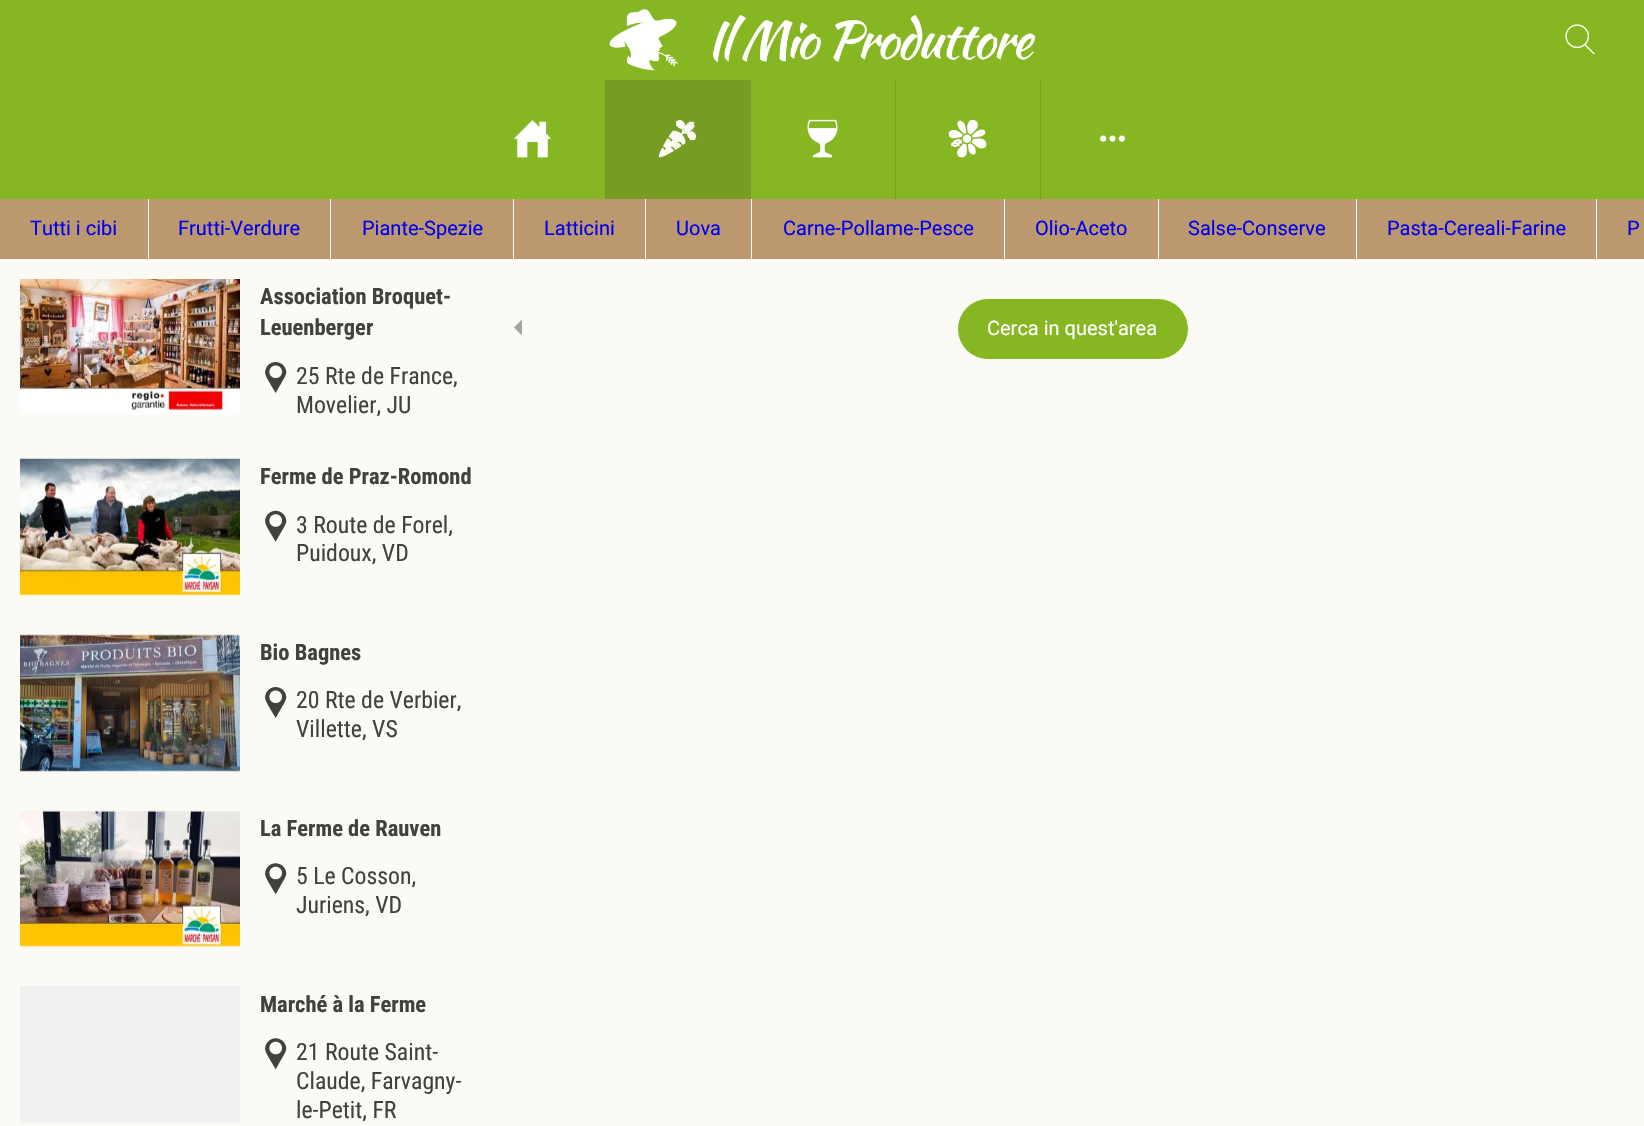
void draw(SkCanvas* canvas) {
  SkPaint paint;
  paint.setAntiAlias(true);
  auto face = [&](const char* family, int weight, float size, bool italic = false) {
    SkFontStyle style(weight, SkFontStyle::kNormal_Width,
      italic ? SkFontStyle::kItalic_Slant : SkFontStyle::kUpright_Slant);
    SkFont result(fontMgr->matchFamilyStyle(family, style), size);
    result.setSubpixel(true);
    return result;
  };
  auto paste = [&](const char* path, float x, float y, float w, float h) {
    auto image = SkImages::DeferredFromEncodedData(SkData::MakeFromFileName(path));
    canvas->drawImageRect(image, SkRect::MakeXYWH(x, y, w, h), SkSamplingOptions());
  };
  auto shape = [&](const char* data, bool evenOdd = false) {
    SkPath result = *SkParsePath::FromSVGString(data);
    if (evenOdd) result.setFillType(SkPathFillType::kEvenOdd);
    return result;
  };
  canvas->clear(0xfffcfaf4);
  paint.setColor(0xff86b723);
  canvas->drawRect(SkRect::MakeXYWH(0, 0, 1644, 199), paint);
  paste("img/1.png", 609, 9, 427, 62);
  paste("img/2.png", 1565, 24, 30, 31);
  paint.setColor(0xff769c24);
  canvas->drawRect(SkRect::MakeXYWH(605, 80, 1, 119), paint);
  paste("img/3.png", 514, 120, 37, 38);
  canvas->drawRect(SkRect::MakeXYWH(606, 80, 145, 119), paint);
  paste("img/4.png", 658, 119, 39, 39);
  canvas->drawRect(SkRect::MakeXYWH(895, 80, 1, 119), paint);
  paste("img/5.png", 807, 119, 31, 39);
  canvas->drawRect(SkRect::MakeXYWH(1040, 80, 1, 119), paint);
  paste("img/6.png", 948, 119, 39, 39);
  paste("img/7.png", 1100, 135, 25, 7);
  {
    const struct { float x, y, w, h; SkColor color; } items[] = {
      {0, 199, 1644, 60, 0xffbb986d},
      {148, 199, 1, 60, 0xfffcfaf4},
      {330, 199, 1, 60, 0xfffcfaf4},
      {513, 199, 1, 60, 0xfffcfaf4},
      {645, 199, 1, 60, 0xfffcfaf4},
      {751, 199, 1, 60, 0xfffcfaf4},
      {1004, 199, 1, 60, 0xfffcfaf4},
      {1158, 199, 1, 60, 0xfffcfaf4},
      {1356, 199, 1, 60, 0xfffcfaf4},
      {1596, 199, 1, 60, 0xfffcfaf4},
    };
    for (auto [x, y, w, h, color] : items) {
      paint.setColor(color);
      canvas->drawRect(SkRect::MakeXYWH(x, y, w, h), paint);
    }
  }
  paste("img/8.png", 20, 279, 220, 136);
  paste("img/9.png", 265, 362, 22, 31);
  paste("img/10.png", 20, 458, 220, 138);
  paste("img/11.png", 265, 510, 22, 32);
  paint.setColor(0xfff1f1f1);
  canvas->drawRect(SkRect::MakeXYWH(20, 635, 220, 136), paint);
  paste("img/12.png", 20, 634, 220, 138);
  paste("img/9.png", 265, 687, 22, 31);
  canvas->drawRect(SkRect::MakeXYWH(20, 811, 220, 135), paint);
  paste("img/13.png", 20, 810, 220, 137);
  paste("img/14.png", 265, 863, 22, 32);
  canvas->drawRect(SkRect::MakeXYWH(20, 986, 220, 137), paint);
  paste("img/14.png", 265, 1038, 22, 32);
  paint.setColor(0xffa4a4a1);
  canvas->drawPath(shape("M522 319.5L514 327.5L522 335.5Z"), paint);
  paint.setColor(0xff86b723);
  canvas->drawRoundRect(SkRect::MakeXYWH(958, 299, 230, 60), 30, 30, paint);
  auto f0 = face("Roboto", 400, 20);
  paint.setColor(0xff0000ee);
  {
    const struct { const char* s; float x, y; } items[] = {
      {"Tutti i cibi", 30, 235},
      {"Frutti-Verdure", 178, 235},
      {"Piante-Spezie", 362, 235},
      {"Latticini", 544, 235},
      {"Uova", 676, 235},
      {"Carne-Pollame-Pesce", 783, 235},
      {"Olio-Aceto", 1035, 235},
      {"Salse-Conserve", 1188, 235},
      {"Pasta-Cereali-Farine", 1387, 235},
      {"P", 1627, 235},
    };
    for (auto [s, x, y] : items) {
      canvas->drawString(s, x, y, f0, paint);
    }
  }
  auto f1 = face("Roboto Condensed", 700, 22.5f);
  paint.setColor(0xff43413f);
  canvas->drawString("Association Broquet-", 260, 304, f1, paint);
  canvas->drawString("Leuenberger", 260, 335, f1, paint);
  auto f2 = face("Roboto Condensed", 400, 23.75f);
  canvas->drawString("25 Rte de France,", 296, 384, f2, paint);
  canvas->drawString("Movelier, JU", 296, 413, f2, paint);
  canvas->drawString("Ferme de Praz-Romond", 260, 484, f1, paint);
  canvas->drawString("3 Route de Forel,", 296, 533, f2, paint);
  canvas->drawString("Puidoux, VD", 296, 561, f2, paint);
  canvas->drawString("Bio Bagnes", 260, 660, f1, paint);
  canvas->drawString("20 Rte de Verbier,", 296, 708, f2, paint);
  canvas->drawString("Villette, VS", 296, 737, f2, paint);
  canvas->drawString("La Ferme de Rauven", 260, 836, f1, paint);
  canvas->drawString("5 Le Cosson,", 296, 884, f2, paint);
  canvas->drawString("Juriens, VD", 296, 913, f2, paint);
  canvas->drawString("Marché à la Ferme", 260, 1012, f1, paint);
  {
    const struct { const char* s; float x, y; } items[] = {
      {"21 Route Saint-", 296, 1060},
      {"Claude, Farvagny-", 296, 1089},
      {"le-Petit, FR", 296, 1118},
    };
    for (auto [s, x, y] : items) {
      canvas->drawString(s, x, y, f2, paint);
    }
  }
  paint.setColor(0xffffffff);
  canvas->drawString("Cerca in quest'area", 987, 335, f0, paint);
}
